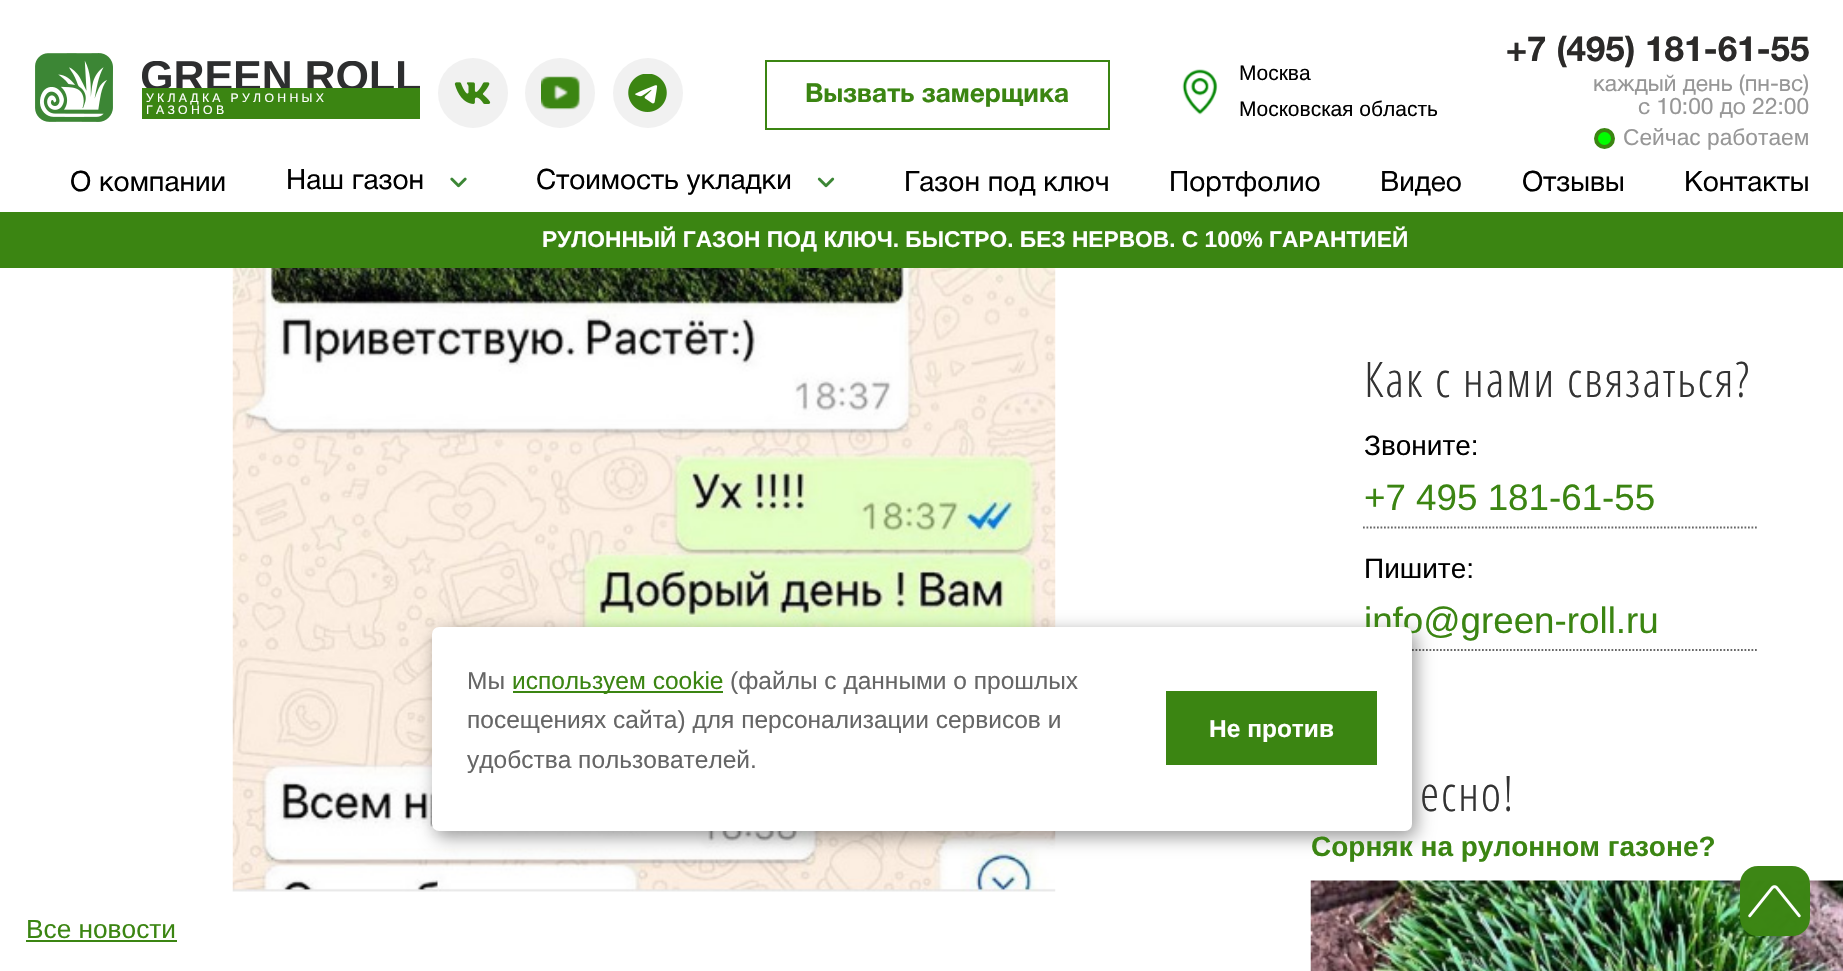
void draw(SkCanvas* canvas) {
  SkPaint paint;
  paint.setAntiAlias(true);
  auto face = [&](const char* family, int weight, float size, bool italic = false) {
    SkFontStyle style(weight, SkFontStyle::kNormal_Width,
      italic ? SkFontStyle::kItalic_Slant : SkFontStyle::kUpright_Slant);
    SkFont result(fontMgr->matchFamilyStyle(family, style), size);
    result.setSubpixel(true);
    return result;
  };
  auto writeSpaced = [&](const char* s, float x, float y, const SkFont& font, const SkPaint& ink, float letter, float word) {
    std::vector<SkGlyphID> glyphs(font.countText(s, strlen(s), SkTextEncoding::kUTF8));
    std::vector<float> xs(glyphs.size());
    font.textToGlyphs(s, strlen(s), SkTextEncoding::kUTF8, glyphs);
    font.getXPos(glyphs, xs, x);
    float extra = 0;
    for (size_t i = 0; i < glyphs.size(); i++) {
      xs[i] += extra;
      extra += letter + word * (glyphs[i] == font.unicharToGlyph(' '));
    }
    canvas->drawTextBlob(SkTextBlob::MakeFromPosHGlyphs(glyphs, xs, y, font), 0, 0, ink);
  };
  auto paste = [&](const char* path, float x, float y, float w, float h) {
    auto image = SkImages::DeferredFromEncodedData(SkData::MakeFromFileName(path));
    canvas->drawImageRect(image, SkRect::MakeXYWH(x, y, w, h), SkSamplingOptions());
  };
  auto shape = [&](const char* data, bool evenOdd = false) {
    SkPath result = *SkParsePath::FromSVGString(data);
    if (evenOdd) result.setFillType(SkPathFillType::kEvenOdd);
    return result;
  };
  canvas->clear(0xffffffff);
  paste("img/1.png", 35, 53, 385, 69);
  paint.setColor(0xff3b8512);
  canvas->drawRect(SkRect::MakeXYWH(142, 88, 278, 31), paint);
  paint.setColor(0xfff1f1f1);
  canvas->drawCircle(473, 93, 35, paint);
  paste("img/2.png", 454, 82, 37, 22);
  canvas->drawCircle(560, 93, 35, paint);
  paste("img/3.png", 541, 76, 39, 34);
  canvas->drawCircle(648, 93, 35, paint);
  paste("img/4.png", 628, 74, 39, 38);
  paint.setStroke(true);
  paint.setStrokeWidth(2);
  paint.setColor(0xff3b8512);
  canvas->drawRect(SkRect::MakeXYWH(766, 61, 343, 68), paint);
  paste("img/5.png", 1182, 69, 36, 46);
  paint.setStroke(false);
  paint.setColor(0xff00ff00);
  canvas->drawCircle(1604.5f, 138.5f, 8.5f, paint);
  paint.setStroke(true);
  paint.setStrokeWidth(4);
  paint.setColor(0xff3b8512);
  canvas->drawCircle(1604.5f, 138.5f, 8.5f, paint);
  paste("img/6.png", 450, 177, 17, 11);
  paste("img/7.png", 817, 177, 18, 11);
  paint.setStroke(false);
  canvas->drawRect(SkRect::MakeXYWH(0, 212, 1843, 56), paint);
  paint.setStroke(true);
  paint.setStrokeWidth(1.8f);
  paint.setColor(0xff666666);
  paint.setPathEffect(SkDashPathEffect::Make({{1.75f, 1.75f}}, 0));
  canvas->drawPath(shape("M1363 527.5H1757"), paint);
  paint.setPathEffect(nullptr);
  paint.setPathEffect(SkDashPathEffect::Make({{1.75f, 1.75f}}, 0));
  canvas->drawPath(shape("M1363 650H1757"), paint);
  paint.setPathEffect(nullptr);
  paste("img/8.png", 1310, 880, 533, 91);
  paste("img/9.png", 232, 268, 824, 624);
  paint.setStroke(false);
  paint.setColor(0xff3b8512);
  canvas->drawRect(SkRect::MakeXYWH(26, 940, 151, 2), paint);
  paint.setColor(0x66000000);
  paint.setMaskFilter(SkMaskFilter::MakeBlur(kNormal_SkBlurStyle, 9));
  canvas->drawRoundRect(SkRect::MakeXYWH(436, 632, 980, 205), 7, 7, paint);
  paint.setMaskFilter(nullptr);
  paint.setColor(0xfc3b8512);
  canvas->drawRoundRect(SkRect::MakeXYWH(1740, 866, 70, 70), 18, 18, paint);
  paste("img/10.png", 1748, 885, 53, 33);
  auto f0 = face("Liberation Sans", 400, 12.25f);
  paint.setColor(0xffffffff);
  writeSpaced("УКЛАДКА РУЛОННЫХ", 146, 102, f0, paint, 3.3f, 0);
  writeSpaced("ГАЗОНОВ", 146, 114, f0, paint, 3.3f, 0);
  auto f1 = face("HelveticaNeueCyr", 700, 26.25f);
  paint.setColor(0xff3b8512);
  canvas->drawString("Вызвать замерщика", 805, 102, f1, paint);
  auto f2 = face("Liberation Sans", 400, 21);
  paint.setColor(0xff000000);
  canvas->drawString("Москва", 1239, 80, f2, paint);
  canvas->drawString("Московская область", 1239, 116, f2, paint);
  auto f3 = face("HelveticaNeueCyr", 700, 35);
  paint.setColor(0xff2b2a29);
  canvas->drawString("+7 (495) 181-61-55", 1506, 61, f3, paint);
  auto f4 = face("HelveticaNeueCyr", 400, 22.75f);
  paint.setColor(0xff979797);
  canvas->drawString("каждый день (пн-вс)", 1593, 91, f4, paint);
  canvas->drawString("с 10:00 до 22:00", 1638, 114, f4, paint);
  auto f5 = face("Liberation Sans", 400, 22.75f);
  canvas->drawString("Сейчас работаем", 1623, 145, f5, paint);
  auto f6 = face("HelveticaNeueCyr", 400, 28);
  paint.setColor(0xff000000);
  {
    const struct { const char* s; float x, y; } items[] = {
      {"О компании", 70, 191},
      {"Наш газон", 286, 189},
      {"Стоимость укладки", 536, 189},
      {"Газон под ключ", 904, 191},
      {"Портфолио", 1169, 191},
      {"Видео", 1380, 191},
      {"Отзывы", 1522, 191},
      {"Контакты", 1684, 191},
    };
    for (auto [s, x, y] : items) {
      canvas->drawString(s, x, y, f6, paint);
    }
  }
  auto f7 = face("Liberation Sans", 700, 22.75f);
  paint.setColor(0xffffffff);
  canvas->drawString("РУЛОННЫЙ ГАЗОН ПОД КЛЮЧ. БЫСТРО. БЕЗ НЕРВОВ. С 100% ГАРАНТИЕЙ", 542, 247, f7, paint);
  auto f8 = face("Open Sans Condensed", 300, 49);
  paint.setColor(0xff333333);
  writeSpaced("Как с нами связаться?", 1364, 397, f8, paint, 1.75f, 0);
  auto f9 = face("Liberation Sans", 400, 28);
  paint.setColor(0xff000000);
  canvas->drawString("Звоните:", 1364, 455, f9, paint);
  auto f10 = face("Liberation Sans", 400, 36.75f);
  paint.setColor(0xff3b8512);
  canvas->drawString("+7 495 181-61-55", 1364, 510, f10, paint);
  paint.setColor(0xff000000);
  canvas->drawString("Пишите:", 1364, 578, f9, paint);
  paint.setColor(0xff3b8512);
  canvas->drawString("info@green-roll.ru", 1364, 633, f10, paint);
  paint.setColor(0xff333333);
  writeSpaced("есно!", 1420, 811, f8, paint, 1.75f, 0);
  auto f11 = face("Liberation Sans", 700, 28);
  paint.setColor(0xff3b8512);
  canvas->drawString("Сорняк на рулонном газоне?", 1311, 856, f11, paint);
  auto f12 = face("Liberation Sans", 400, 26.25f);
  canvas->drawString("Все новости", 26, 938, f12, paint);
  paint.setColor(0xffffffff);
  canvas->drawRoundRect(SkRect::MakeXYWH(432, 627, 980, 204), 7, 7, paint);
  auto f13 = face("Liberation Sans", 400, 24.5f);
  paint.setColor(0xff666666);
  canvas->drawString("Мы", 467, 689, f13, paint);
  paint.setColor(0xff3b8512);
  canvas->drawRect(SkRect::MakeXYWH(513, 691, 210, 2), paint);
  canvas->drawString("используем cookie", 512, 689, f13, paint);
  paint.setColor(0xff666666);
  {
    const struct { const char* s; float x, y; } items[] = {
      {"(файлы с данными о прошлых", 730, 689},
      {"посещениях сайта) для персонализации сервисов и", 467, 728},
      {"удобства пользователей.", 467, 768},
    };
    for (auto [s, x, y] : items) {
      canvas->drawString(s, x, y, f13, paint);
    }
  }
  paint.setColor(0xff3b8512);
  canvas->drawRect(SkRect::MakeXYWH(1166, 691, 211, 74), paint);
  auto f14 = face("Liberation Sans", 700, 24.5f);
  paint.setColor(0xffffffff);
  canvas->drawString("Не против", 1209, 737, f14, paint);
}
